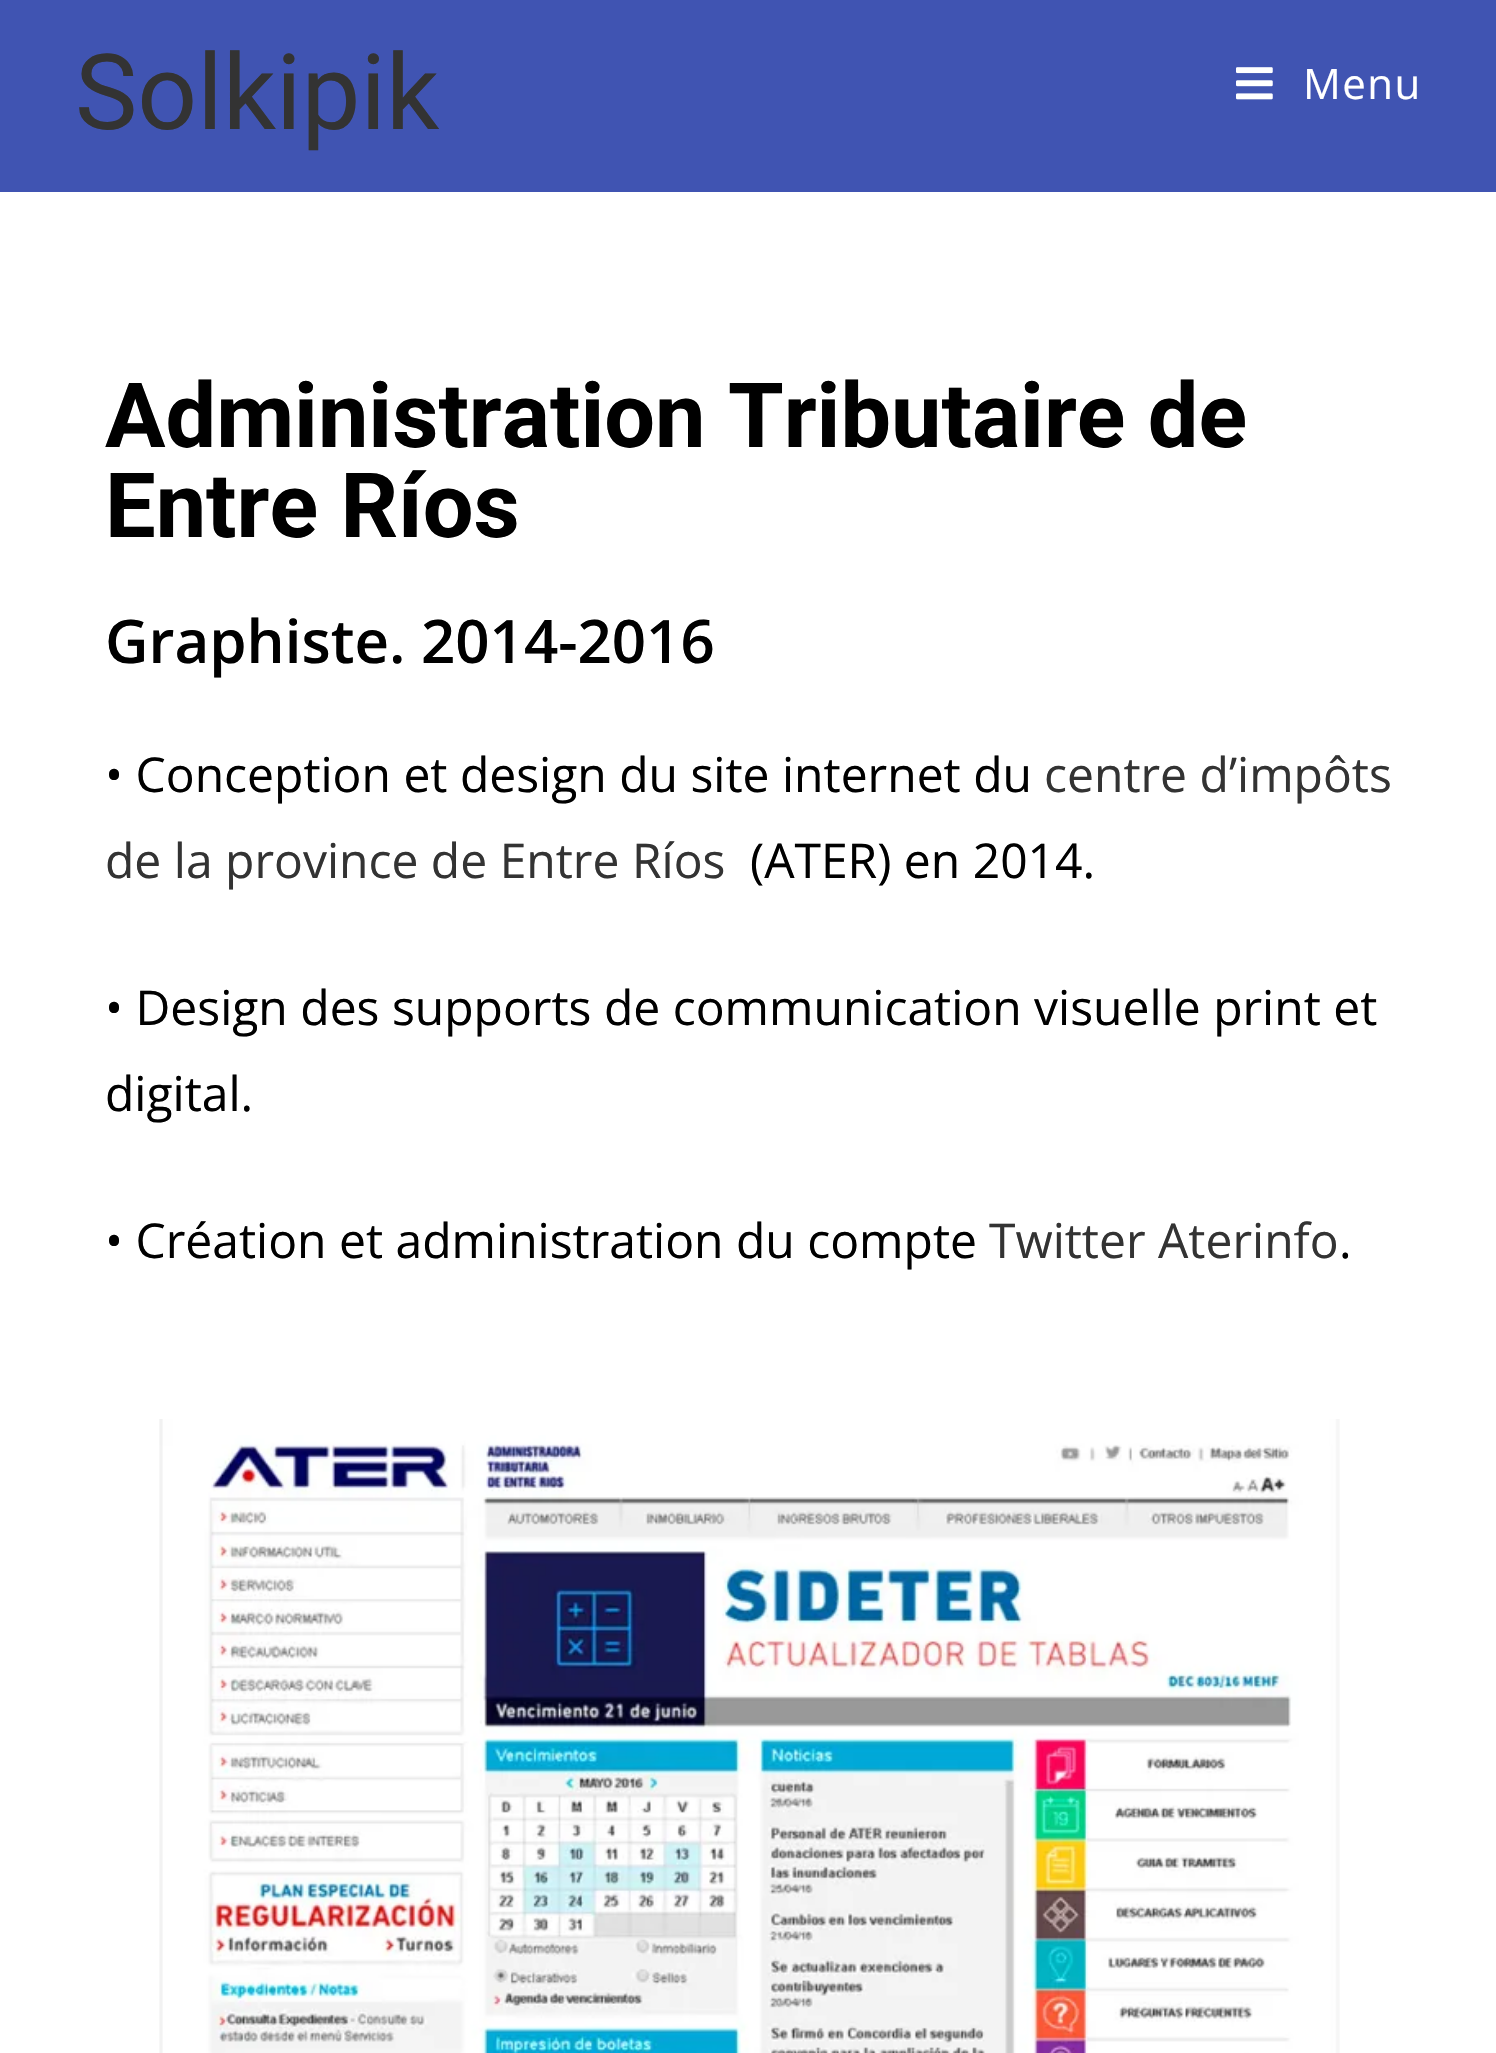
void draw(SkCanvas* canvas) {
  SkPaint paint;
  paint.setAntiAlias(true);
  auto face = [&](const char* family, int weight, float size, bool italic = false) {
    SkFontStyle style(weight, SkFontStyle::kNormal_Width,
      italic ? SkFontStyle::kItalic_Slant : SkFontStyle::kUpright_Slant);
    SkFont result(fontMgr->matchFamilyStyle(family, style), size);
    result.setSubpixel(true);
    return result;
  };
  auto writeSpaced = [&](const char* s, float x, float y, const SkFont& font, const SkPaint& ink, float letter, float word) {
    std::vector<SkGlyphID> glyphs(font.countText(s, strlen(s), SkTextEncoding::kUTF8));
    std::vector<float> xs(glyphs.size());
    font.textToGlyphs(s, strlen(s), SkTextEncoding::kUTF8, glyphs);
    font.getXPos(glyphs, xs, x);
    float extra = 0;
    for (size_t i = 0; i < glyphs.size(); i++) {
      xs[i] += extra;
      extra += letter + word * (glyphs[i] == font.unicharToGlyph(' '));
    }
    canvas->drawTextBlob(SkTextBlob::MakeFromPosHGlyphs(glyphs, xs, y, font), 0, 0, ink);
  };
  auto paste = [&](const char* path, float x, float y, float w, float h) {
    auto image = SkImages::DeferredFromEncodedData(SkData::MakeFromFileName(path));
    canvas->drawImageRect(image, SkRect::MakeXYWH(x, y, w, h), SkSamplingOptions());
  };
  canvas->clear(0xffffffff);
  paint.setColor(0xff4054b2);
  canvas->drawRect(SkRect::MakeXYWH(0, 0, 1496, 192), paint);
  paste("img/1.png", 1236, 67, 37, 33);
  paste("img/2.png", 159, 1419, 1181, 634);
  auto f0 = face("Roboto", 400, 105);
  paint.setColor(0xff333333);
  canvas->drawString("Solkipik", 75, 129, f0, paint);
  auto f1 = face("Open Sans", 400, 42);
  paint.setColor(0xffffffff);
  writeSpaced("Menu", 1303, 99, f1, paint, 1.5f, 0);
  auto f2 = face("Roboto", 700, 90);
  paint.setColor(0xff000000);
  canvas->drawString("Administration Tributaire de", 105, 447, f2, paint);
  canvas->drawString("Entre Ríos", 105, 537, f2, paint);
  auto f3 = face("Open Sans", 600, 60);
  canvas->drawString("Graphiste. 2014-2016", 105, 663, f3, paint);
  auto f4 = face("Open Sans", 400, 48);
  canvas->drawString("• Conception et design du site internet du", 105, 792, f4, paint);
  paint.setColor(0xff333333);
  canvas->drawString("centre d’impôts", 1044, 792, f4, paint);
  canvas->drawString("de la province de Entre Ríos", 105, 878, f4, paint);
  paint.setColor(0xff000000);
  {
    const struct { const char* s; float x, y; } items[] = {
      {"(ATER) en 2014.", 750, 878},
      {"• Design des supports de communication visuelle print et", 105, 1025},
      {"digital.", 105, 1111},
      {"• Création et administration du compte", 105, 1258},
    };
    for (auto [s, x, y] : items) {
      canvas->drawString(s, x, y, f4, paint);
    }
  }
  paint.setColor(0xff333333);
  canvas->drawString("Twitter Aterinfo", 989, 1258, f4, paint);
  paint.setColor(0xff000000);
  canvas->drawString(".", 1339, 1258, f4, paint);
}
